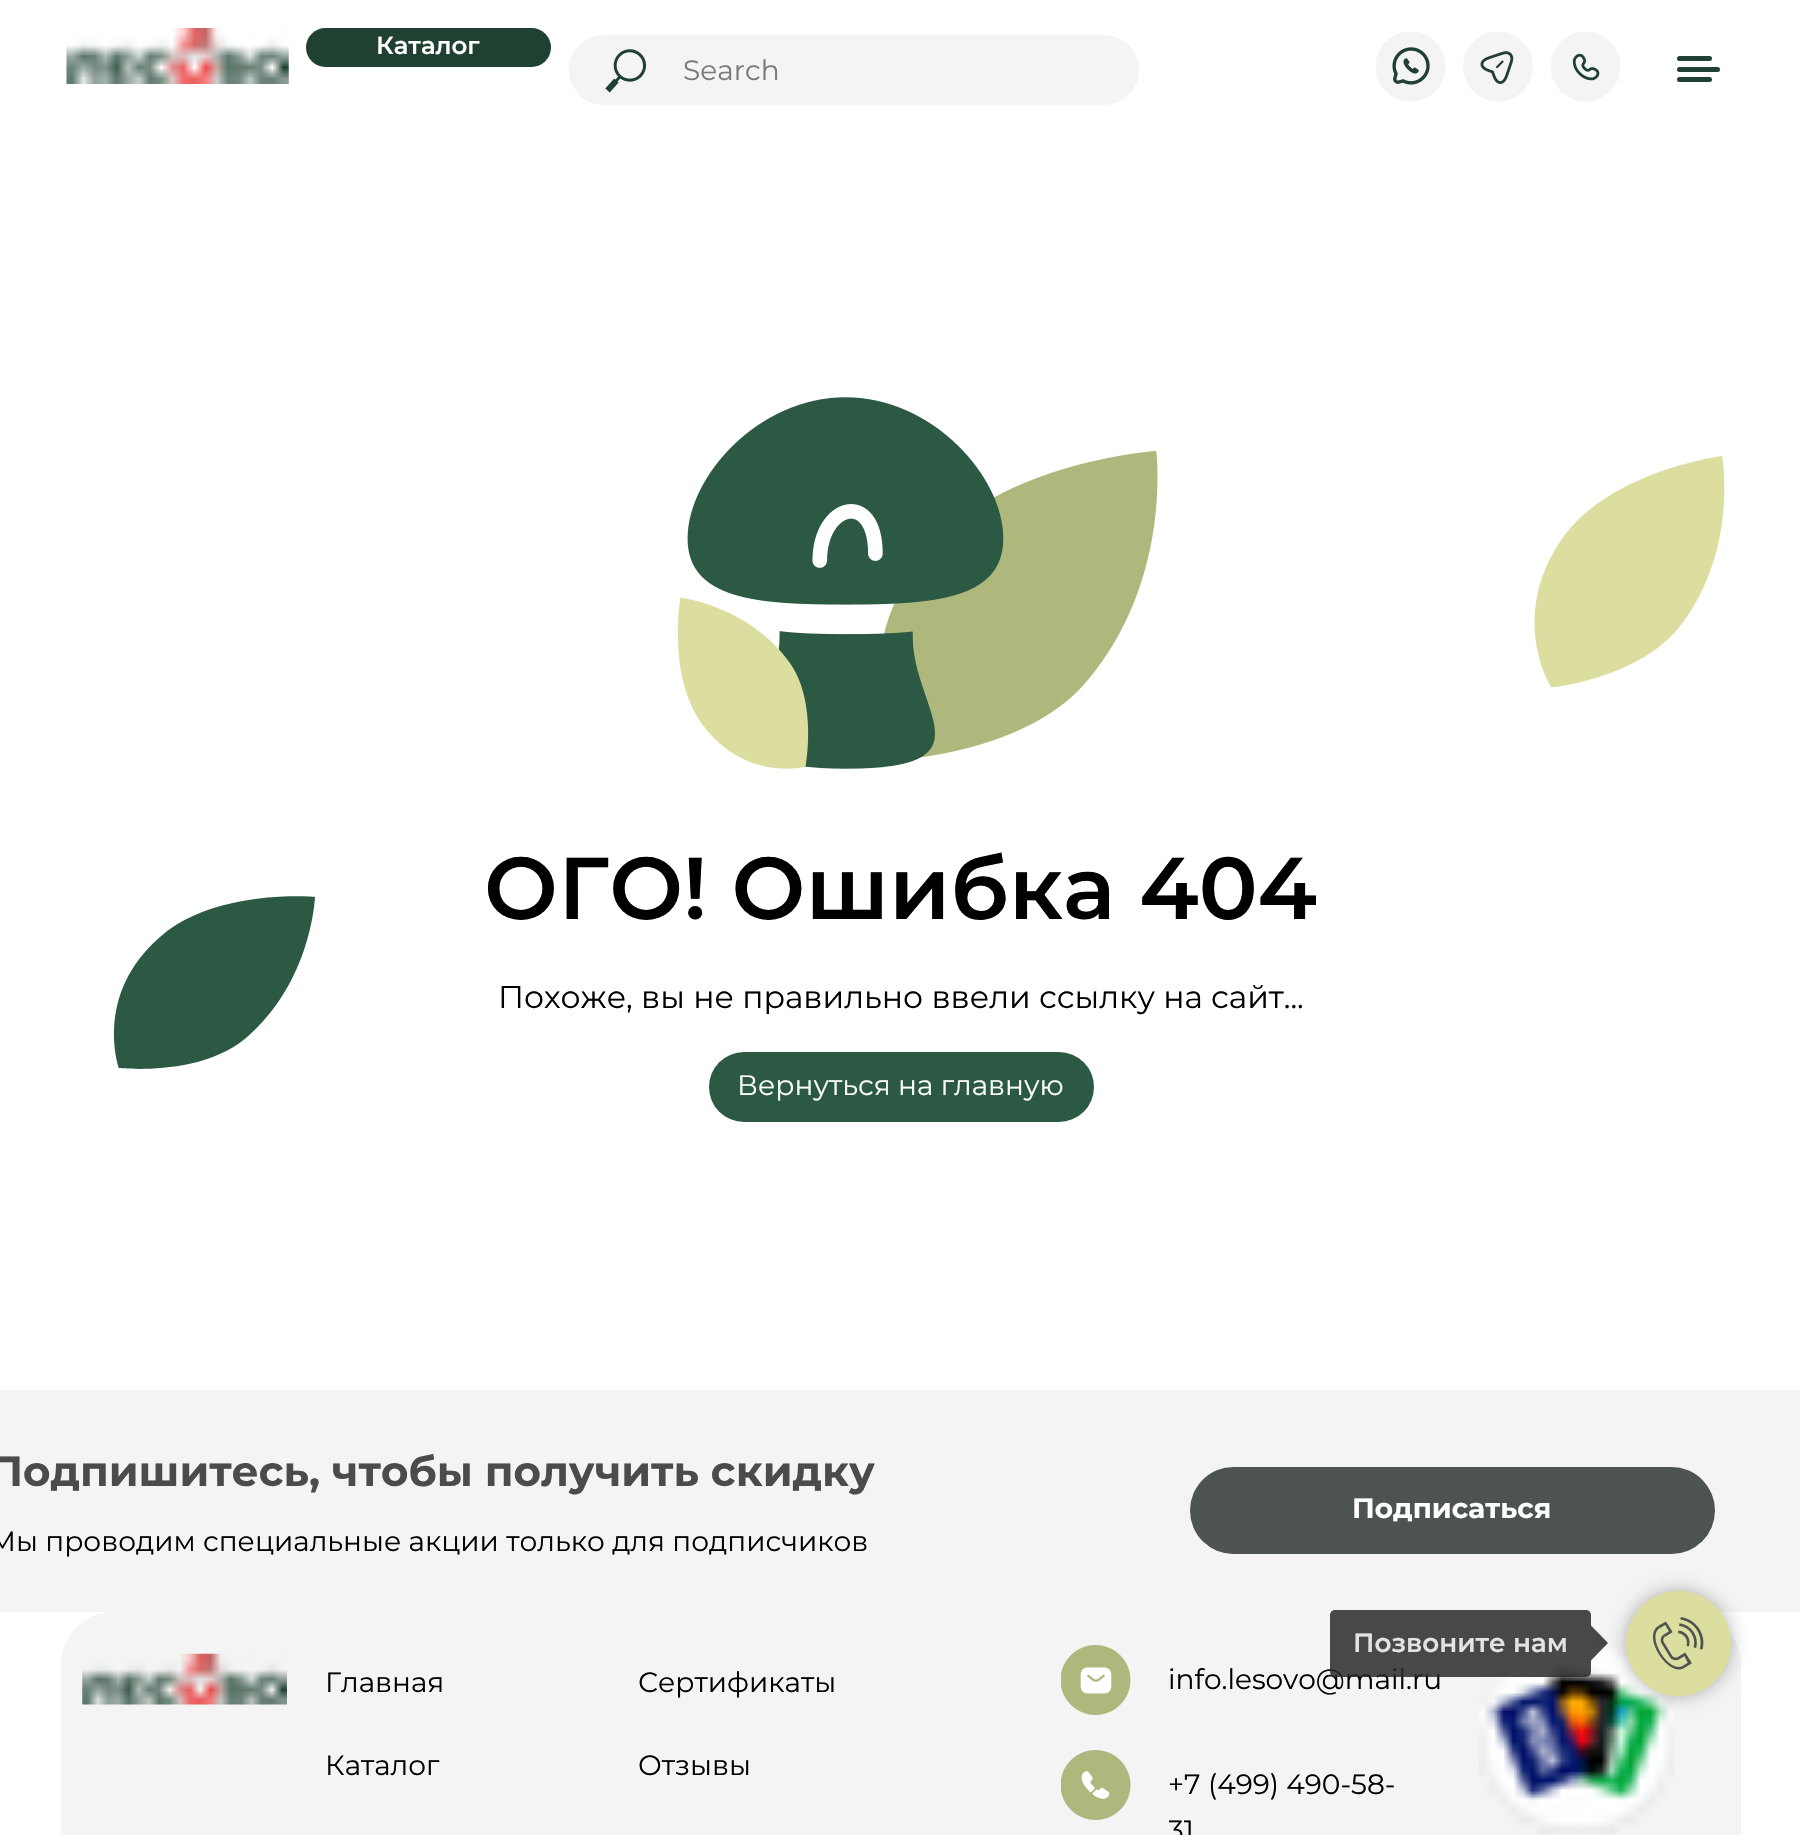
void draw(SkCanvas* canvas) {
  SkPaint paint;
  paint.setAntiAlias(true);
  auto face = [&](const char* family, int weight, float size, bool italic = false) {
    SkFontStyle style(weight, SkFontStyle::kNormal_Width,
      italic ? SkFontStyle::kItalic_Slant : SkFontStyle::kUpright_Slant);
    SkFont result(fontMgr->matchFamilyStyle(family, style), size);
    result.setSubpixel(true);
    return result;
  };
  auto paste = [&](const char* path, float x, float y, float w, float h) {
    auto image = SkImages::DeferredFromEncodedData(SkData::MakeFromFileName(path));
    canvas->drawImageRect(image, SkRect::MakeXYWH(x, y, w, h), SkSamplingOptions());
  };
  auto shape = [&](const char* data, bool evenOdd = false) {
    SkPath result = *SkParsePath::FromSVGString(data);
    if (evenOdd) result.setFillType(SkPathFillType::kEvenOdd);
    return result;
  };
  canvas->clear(0xffffffff);
  paste("img/1.png", 66, 28, 223, 56);
  paint.setColor(0xff204031);
  canvas->drawRoundRect(SkRect::MakeXYWH(306, 28, 245, 39), 19.5f, 19.5f, paint);
  paste("img/2.png", 1376, 32, 70, 70);
  paste("img/3.png", 1463, 32, 70, 70);
  paste("img/4.png", 1551, 32, 70, 70);
  canvas->drawRoundRect(SkRect::MakeXYWH(1677, 56, 35, 5), 2.5f, 2.5f, paint);
  paint.setColor(0xfff4f4f4);
  canvas->drawRoundRect(SkRect::MakeXYWH(570, 36, 568, 68), 34, 34, paint);
  paint.setStroke(true);
  paint.setStrokeWidth(2);
  canvas->drawRoundRect(SkRect::MakeXYWH(570, 36, 568, 68), 34, 34, paint);
  paste("img/5.png", 605, 49, 42, 44);
  paint.setStroke(false);
  paint.setColor(0xff204031);
  canvas->drawRoundRect(SkRect::MakeXYWH(1677, 67, 43, 5), 2.5f, 2.5f, paint);
  canvas->drawRoundRect(SkRect::MakeXYWH(1677, 77, 35, 5), 2.5f, 2.5f, paint);
  paste("img/6.png", 677, 397, 481, 372);
  paint.setColor(0xffdcde9f);
  canvas->drawPath(shape("M1722 456C1722 456 1613 470 1564 536C1509 612 1547 681 1551 687H1555C1573 685 1646 671 1681 625C1739 548 1722 456 1722 456Z"), paint);
  paint.setColor(0xff2b5944);
  canvas->drawPath(shape("M315 897C315 897 216 888 160 937C93 995 119 1068 119 1068C119 1068 200 1077 246 1038C312 982 315 897 315 897Z"), paint);
  canvas->drawRoundRect(SkRect::MakeXYWH(709, 1052, 385, 70), 35, 35, paint);
  paint.setColor(0xfff4f4f4);
  canvas->drawRect(SkRect::MakeXYWH(0, 1390, 1800, 222), paint);
  paint.setColor(0xff4c5351);
  canvas->drawRoundRect(SkRect::MakeXYWH(1190, 1467, 525, 87), 43.5f, 43.5f, paint);
  paint.setColor(0xfff4f4f4);
  canvas->drawRoundRect(SkRect::MakeXYWH(61, 1612, 1680, 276), 53, 53, paint);
  paste("img/10.png", 1479, 1644, 196, 190);
  paint.setColor(0xd9292929);
  canvas->drawPath(shape("M1591 1660.5V1625.5L1608 1643Z"), paint);
  paint.setColor(0x4d000000);
  paint.setMaskFilter(SkMaskFilter::MakeBlur(kNormal_SkBlurStyle, 9));
  canvas->drawRoundRect(SkRect::MakeXYWH(1626, 1591, 105, 105), 52.5f, 52.5f, paint);
  paint.setMaskFilter(nullptr);
  paint.setColor(0xffdcde9f);
  canvas->drawCircle(1678.5f, 1643.5f, 52.5f, paint);
  paste("img/7.png", 1653, 1617, 51, 53);
  paste("img/8.png", 82, 1653, 205, 52);
  paste("img/9.png", 1061, 1645, 70, 70);
  paste("img/11.png", 1061, 1750, 70, 70);
  auto f0 = face("Montserrat", 600, 24.5f);
  paint.setColor(0xffffffff);
  canvas->drawString("Каталог", 376, 54, f0, paint);
  auto f1 = face("Montserrat", 400, 28);
  paint.setColor(0xff7a7a7a);
  canvas->drawString("Search", 683, 80, f1, paint);
  auto f2 = face("Montserrat", 600, 87.5f);
  paint.setColor(0xff000000);
  canvas->drawString("ОГО! Ошибка 404", 484, 919, f2, paint);
  auto f3 = face("Montserrat", 400, 31.5f);
  canvas->drawString("Похоже, вы не правильно ввели ссылку на сайт...", 498, 1008, f3, paint);
  paint.setColor(0xffffffff);
  canvas->drawString("Вернуться на главную", 737, 1095, f1, paint);
  auto f4 = face("Montserrat", 700, 42);
  paint.setColor(0xff4b4b4b);
  canvas->drawString("Подпишитесь, чтобы получить скидку", -11, 1486, f4, paint);
  auto f5 = face("Montserrat", 700, 28);
  paint.setColor(0xffffffff);
  canvas->drawString("Подписаться", 1352, 1518, f5, paint);
  paint.setColor(0xff000000);
  {
    const struct { const char* s; float x, y; } items[] = {
      {"Мы проводим специальные акции только для подписчиков", -11, 1551},
      {"Главная", 325, 1692},
      {"Сертификаты", 638, 1692},
      {"info.lesovo@mail.ru", 1168, 1689},
    };
    for (auto [s, x, y] : items) {
      canvas->drawString(s, x, y, f1, paint);
    }
  }
  paint.setColor(0xd9292929);
  canvas->drawRoundRect(SkRect::MakeXYWH(1330, 1610, 261, 67), 5, 5, paint);
  auto f6 = face("Montserrat", 600, 26.25f);
  paint.setColor(0xffe3e3e3);
  canvas->drawString("Позвоните нам", 1353, 1652, f6, paint);
  paint.setColor(0xff000000);
  {
    const struct { const char* s; float x, y; } items[] = {
      {"Каталог", 325, 1775},
      {"Отзывы", 638, 1775},
      {"+7 (499) 490-58-", 1168, 1794},
      {"31", 1168, 1840},
    };
    for (auto [s, x, y] : items) {
      canvas->drawString(s, x, y, f1, paint);
    }
  }
}
